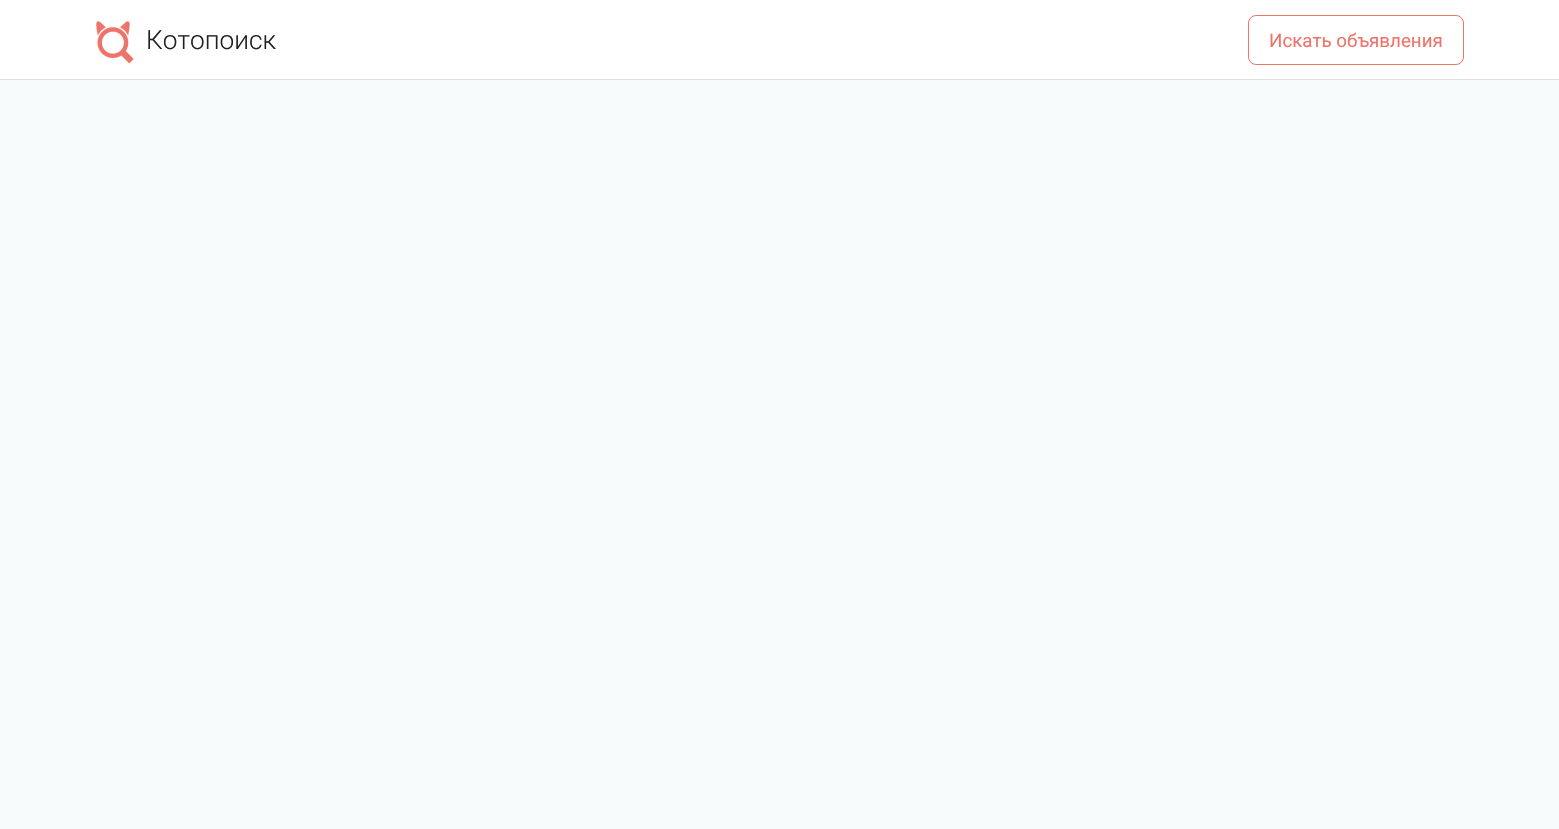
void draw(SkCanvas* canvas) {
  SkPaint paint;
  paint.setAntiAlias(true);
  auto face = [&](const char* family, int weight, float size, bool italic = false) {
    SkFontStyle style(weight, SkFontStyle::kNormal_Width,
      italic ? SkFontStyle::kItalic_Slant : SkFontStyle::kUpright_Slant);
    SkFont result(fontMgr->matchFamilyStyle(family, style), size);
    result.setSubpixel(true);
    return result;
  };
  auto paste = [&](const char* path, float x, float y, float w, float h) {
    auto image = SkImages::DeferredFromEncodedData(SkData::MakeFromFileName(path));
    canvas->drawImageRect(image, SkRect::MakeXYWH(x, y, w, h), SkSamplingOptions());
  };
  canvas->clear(0xfff7fafb);
  paint.setColor(0xffffffff);
  canvas->drawRect(SkRect::MakeXYWH(0, 0, 1559, 79), paint);
  paint.setColor(0xffe0e0e0);
  canvas->drawRect(SkRect::MakeXYWH(0, 79, 1559, 1), paint);
  paste("img/1.png", 96, 21, 38, 43);
  paint.setStroke(true);
  paint.setStrokeWidth(1);
  paint.setColor(0xffee7469);
  canvas->drawRoundRect(SkRect::MakeXYWH(1248.5f, 15.5f, 215, 49), 7.5f, 7.5f, paint);
  auto f0 = face("Roboto", 300, 26.25f);
  paint.setStroke(false);
  paint.setColor(0xff212121);
  canvas->drawString("Котопоиск", 146, 49, f0, paint);
  auto f1 = face("Roboto", 400, 18.75f);
  paint.setColor(0xffee7469);
  canvas->drawString("Искать объявления", 1269, 47, f1, paint);
}
